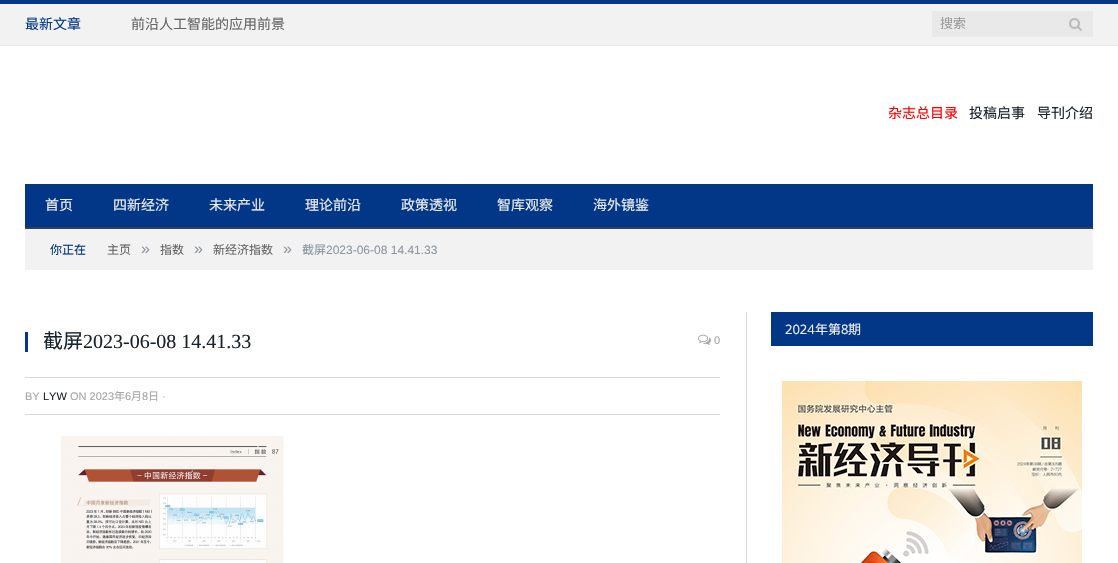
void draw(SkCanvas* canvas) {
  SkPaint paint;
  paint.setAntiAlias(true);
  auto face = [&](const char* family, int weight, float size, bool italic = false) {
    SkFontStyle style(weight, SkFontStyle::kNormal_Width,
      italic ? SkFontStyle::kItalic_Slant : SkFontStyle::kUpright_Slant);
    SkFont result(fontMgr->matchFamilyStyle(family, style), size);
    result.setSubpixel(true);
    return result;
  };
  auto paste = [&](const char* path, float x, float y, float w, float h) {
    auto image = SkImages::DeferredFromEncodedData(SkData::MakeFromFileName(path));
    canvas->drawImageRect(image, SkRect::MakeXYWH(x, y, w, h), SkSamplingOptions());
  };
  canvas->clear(0xffffffff);
  {
    const struct { float x, y, w, h; SkColor color; } items[] = {
      {0, 4, 1118, 41, 0xfff2f2f2},
      {0, 0, 1118, 4, 0xff023686},
      {0, 45, 1118, 1, 0xffe7e7e7},
      {932, 11, 161, 26, 0xffe9e9e9},
    };
    for (auto [x, y, w, h, color] : items) {
      paint.setColor(color);
      canvas->drawRect(SkRect::MakeXYWH(x, y, w, h), paint);
    }
  }
  paste("img/1.png", 1069, 18, 13, 13);
  {
    const struct { float x, y, w, h; SkColor color; } items[] = {
      {25, 184, 1068, 43, 0xff023686},
      {25, 227, 1068, 2, 0xff2f4154},
      {25, 229, 1068, 41, 0xfff2f2f2},
      {746, 312, 1, 251, 0xffd9d9d9},
      {771, 312, 322, 34, 0xff023686},
    };
    for (auto [x, y, w, h, color] : items) {
      paint.setColor(color);
      canvas->drawRect(SkRect::MakeXYWH(x, y, w, h), paint);
    }
  }
  paste("img/2.png", 782, 381, 300, 182);
  canvas->drawRect(SkRect::MakeXYWH(25, 332, 3, 20), paint);
  paste("img/3.png", 698, 334, 13, 11);
  paint.setColor(0xffd9d9d9);
  canvas->drawRect(SkRect::MakeXYWH(25, 377, 695, 1), paint);
  canvas->drawRect(SkRect::MakeXYWH(25, 414, 695, 1), paint);
  paste("img/4.png", 61, 436, 223, 127);
  auto f0 = face("Noto Sans CJK SC", 400, 14);
  paint.setColor(0xff023686);
  canvas->drawString("最新文章", 25, 29, f0, paint);
  paint.setColor(0xff656565);
  canvas->drawString("前沿人工智能的应用前景", 131, 29, f0, paint);
  auto f1 = face("Noto Sans CJK SC", 400, 13);
  paint.setColor(0xff999999);
  canvas->drawString("搜索", 940, 28, f1, paint);
  paint.setColor(0xffff0000);
  canvas->drawString("杂志总目录", 888, 118, f0, paint);
  paint.setColor(0xff19232d);
  canvas->drawString("投稿启事", 969, 118, f0, paint);
  canvas->drawString("导刊介绍", 1037, 118, f0, paint);
  paint.setColor(0xffefefef);
  {
    const struct { const char* s; float x, y; } items[] = {
      {"首页", 45, 210},
      {"四新经济", 113, 210},
      {"未来产业", 209, 210},
      {"理论前沿", 305, 210},
      {"政策透视", 401, 210},
      {"智库观察", 497, 210},
      {"海外镜鉴", 593, 210},
    };
    for (auto [s, x, y] : items) {
      canvas->drawString(s, x, y, f0, paint);
    }
  }
  auto f2 = face("Noto Sans CJK SC", 400, 12);
  paint.setColor(0xff023686);
  canvas->drawString("你正在", 50, 254, f2, paint);
  paint.setColor(0xff656565);
  canvas->drawString("主页", 107, 254, f2, paint);
  auto f3 = face("Liberation Sans", 400, 16);
  paint.setColor(0xff8d97a1);
  canvas->drawString("»", 141, 254, f3, paint);
  paint.setColor(0xff656565);
  canvas->drawString("指数", 160, 254, f2, paint);
  paint.setColor(0xff8d97a1);
  canvas->drawString("»", 194, 254, f3, paint);
  paint.setColor(0xff656565);
  canvas->drawString("新经济指数", 213, 254, f2, paint);
  paint.setColor(0xff8d97a1);
  canvas->drawString("»", 283, 254, f3, paint);
  canvas->drawString("截屏", 302, 254, f2, paint);
  auto f4 = face("Liberation Sans", 400, 12);
  canvas->drawString("2023-06-08 14.41.33", 326, 254, f4, paint);
  auto f5 = face("Open Sans", 400, 13);
  paint.setColor(0xffefefef);
  canvas->drawString("2024", 785, 334, f5, paint);
  canvas->drawString("年第", 815, 334, f1, paint);
  canvas->drawString("8", 841, 334, f5, paint);
  canvas->drawString("期", 848, 334, f1, paint);
  auto f6 = face("Noto Sans CJK SC", 400, 20);
  paint.setColor(0xff19232d);
  canvas->drawString("截屏", 43, 348, f6, paint);
  auto f7 = face("Liberation Serif", 400, 20);
  canvas->drawString("2023-06-08 14.41.33", 83, 348, f7, paint);
  auto f8 = face("Liberation Sans", 400, 11);
  paint.setColor(0xffa6a6a6);
  canvas->drawString("0", 714, 344, f8, paint);
  canvas->drawString("BY", 25, 400, f8, paint);
  paint.setColor(0xff19232d);
  canvas->drawString("LYW", 43, 400, f8, paint);
  paint.setColor(0xffa6a6a6);
  canvas->drawString("ON 2023", 70, 400, f8, paint);
  auto f9 = face("Noto Sans CJK SC", 400, 11);
  canvas->drawString("年", 114, 400, f9, paint);
  canvas->drawString("6", 125, 400, f8, paint);
  canvas->drawString("月", 131, 400, f9, paint);
  canvas->drawString("8", 142, 400, f8, paint);
  canvas->drawString("日", 148, 400, f9, paint);
  canvas->drawString("·", 162, 400, f8, paint);
}
